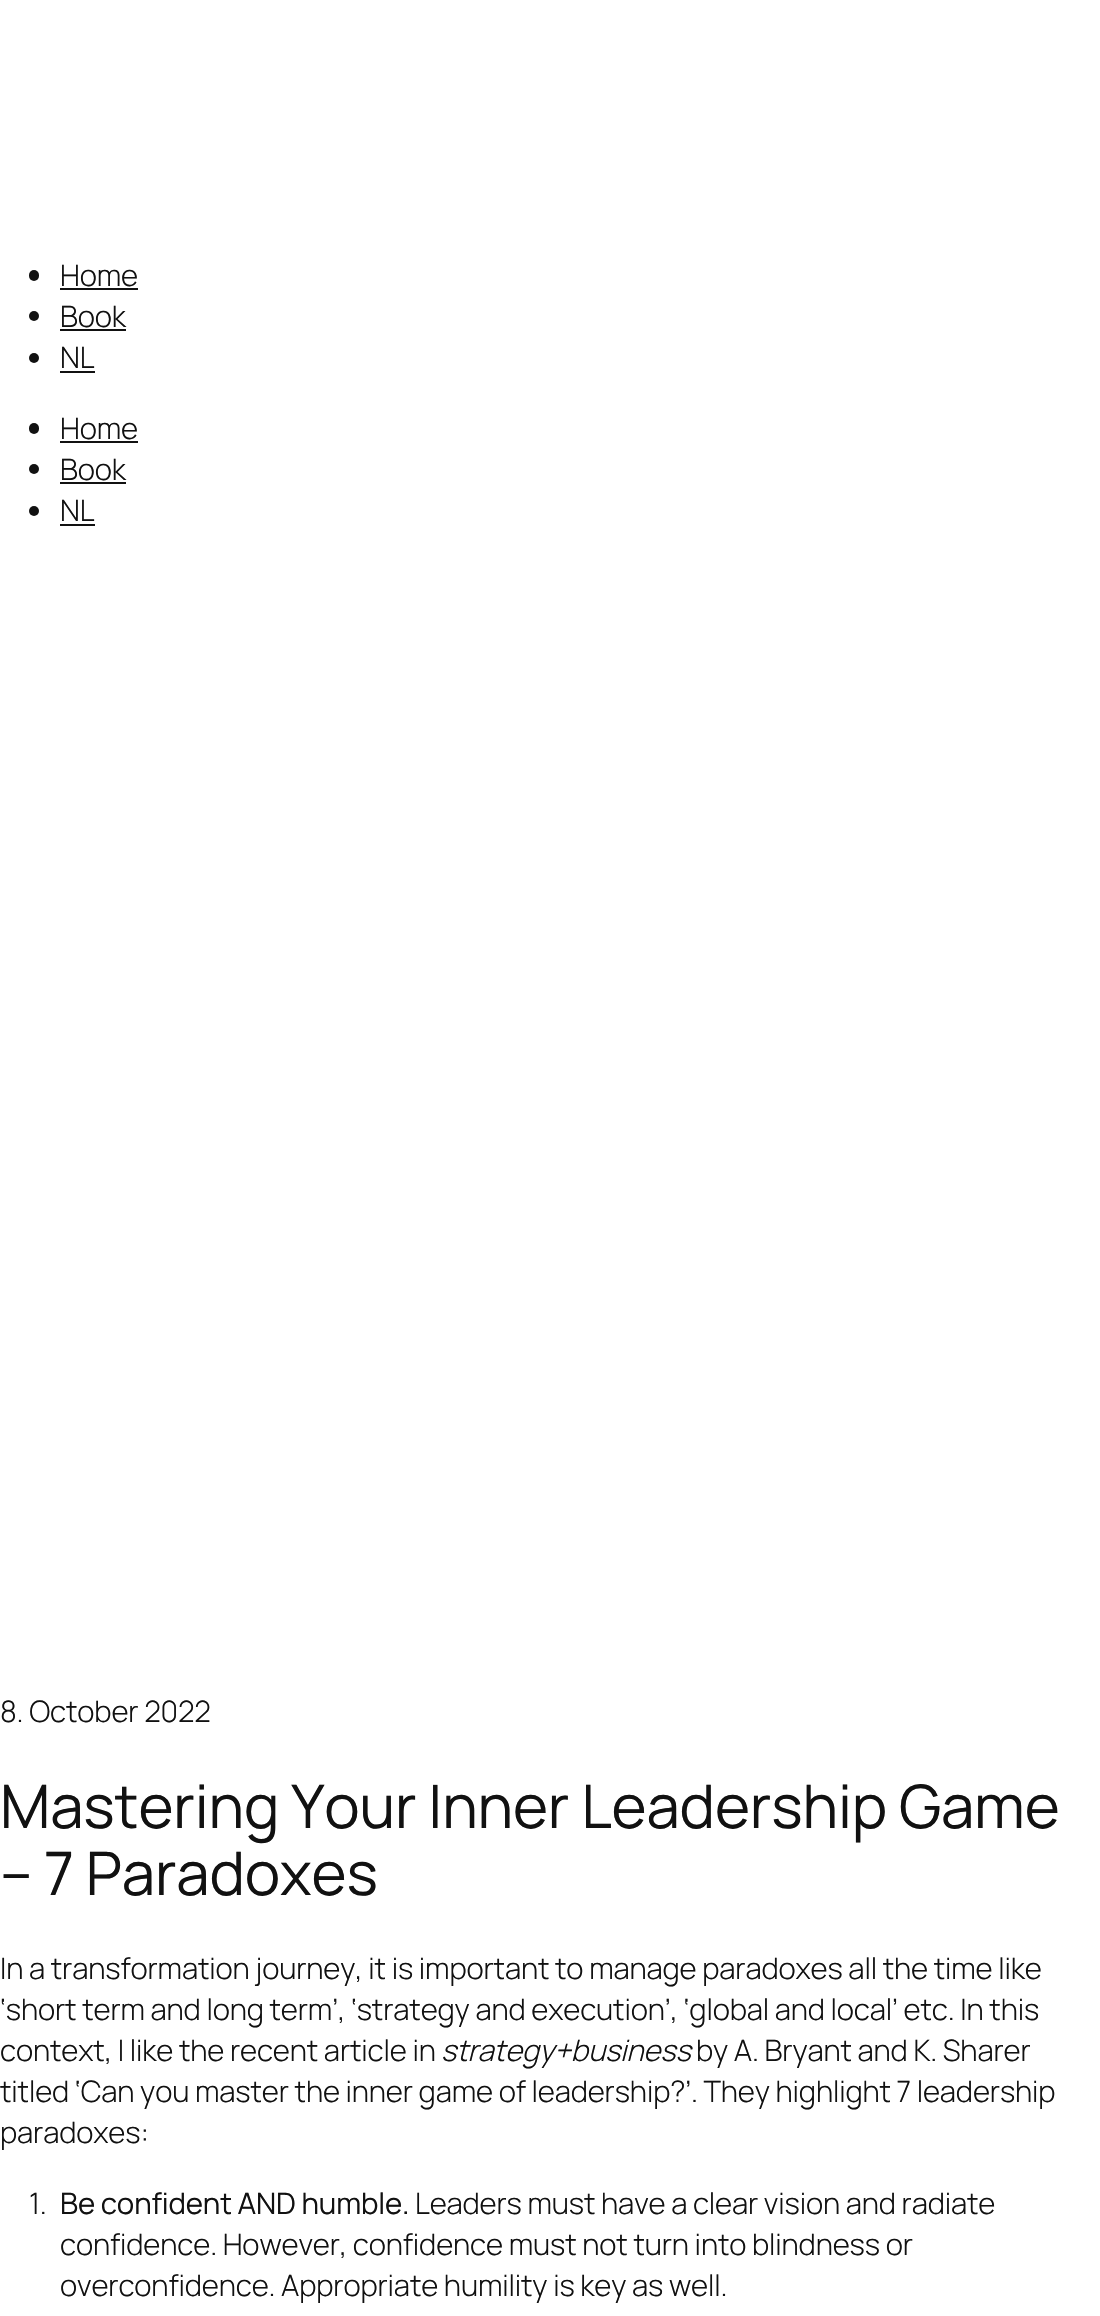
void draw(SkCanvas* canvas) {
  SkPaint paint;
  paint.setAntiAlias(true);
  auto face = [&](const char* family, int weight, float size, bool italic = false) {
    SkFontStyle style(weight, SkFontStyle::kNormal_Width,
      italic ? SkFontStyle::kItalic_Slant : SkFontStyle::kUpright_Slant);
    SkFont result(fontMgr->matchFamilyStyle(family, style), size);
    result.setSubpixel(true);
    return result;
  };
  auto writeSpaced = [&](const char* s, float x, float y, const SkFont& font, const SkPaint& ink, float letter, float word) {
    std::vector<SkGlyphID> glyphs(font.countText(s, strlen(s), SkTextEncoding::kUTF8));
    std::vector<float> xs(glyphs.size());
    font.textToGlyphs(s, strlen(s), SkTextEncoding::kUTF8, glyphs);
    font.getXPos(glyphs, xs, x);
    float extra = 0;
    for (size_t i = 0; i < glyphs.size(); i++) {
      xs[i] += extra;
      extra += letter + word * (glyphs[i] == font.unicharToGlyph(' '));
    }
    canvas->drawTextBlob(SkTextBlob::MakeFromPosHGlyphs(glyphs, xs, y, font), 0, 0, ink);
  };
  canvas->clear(0xffffffff);
  paint.setColor(0xff111111);
  canvas->drawRoundRect(SkRect::MakeXYWH(29, 270, 10, 11), 5, 5, paint);
  canvas->drawRect(SkRect::MakeXYWH(60, 288, 78, 2), paint);
  canvas->drawCircle(34, 316, 5, paint);
  canvas->drawRect(SkRect::MakeXYWH(60, 329, 66, 2), paint);
  canvas->drawCircle(34, 358, 5, paint);
  canvas->drawRect(SkRect::MakeXYWH(60, 371, 35, 2), paint);
  canvas->drawRoundRect(SkRect::MakeXYWH(29, 423, 10, 11), 5, 5, paint);
  canvas->drawRect(SkRect::MakeXYWH(60, 441, 78, 2), paint);
  canvas->drawCircle(34, 469, 5, paint);
  canvas->drawRect(SkRect::MakeXYWH(60, 482, 66, 2), paint);
  canvas->drawCircle(34, 511, 5, paint);
  canvas->drawRect(SkRect::MakeXYWH(60, 524, 35, 2), paint);
  auto f0 = face("Manrope", 300, 29.45f);
  {
    const struct { const char* s; float x, y; } items[] = {
      {"Home", 60, 286},
      {"Book", 60, 327},
      {"NL", 60, 368},
      {"Home", 60, 439},
      {"Book", 60, 480},
      {"NL", 60, 521},
      {"8. October 2022", 0, 1722},
    };
    for (auto [s, x, y] : items) {
      writeSpaced(s, x, y, f0, paint, -0.15f, 0);
    }
  }
  auto f1 = face("Manrope", 400, 59.9f);
  writeSpaced("Mastering Your Inner Leadership Game", 0, 1828, f1, paint, -0.15f, 0);
  writeSpaced("– 7 Paradoxes", 0, 1895, f1, paint, -0.15f, 0);
  {
    const struct { const char* s; float x, y; } items[] = {
      {"In a transformation journey, it is important to manage paradoxes all the time like", 0, 1979},
      {"‘short term and long term’, ‘strategy and execution’, ‘global and local’ etc. In this", 0, 2020},
      {"context, I like the recent article in", 0, 2061},
    };
    for (auto [s, x, y] : items) {
      writeSpaced(s, x, y, f0, paint, -0.15f, 0);
    }
  }
  auto f2 = face("Manrope", 300, 29.45f, true);
  writeSpaced("strategy+business", 441, 2061, f2, paint, -0.15f, 0);
  {
    const struct { const char* s; float x, y; } items[] = {
      {"by A. Bryant and K. Sharer", 696, 2061},
      {"titled ‘Can you master the inner game of leadership?’. They highlight 7 leadership", 0, 2102},
      {"paradoxes:", 0, 2143},
      {"1.", 29, 2214},
    };
    for (auto [s, x, y] : items) {
      writeSpaced(s, x, y, f0, paint, -0.15f, 0);
    }
  }
  auto f3 = face("Manrope", 400, 29.45f);
  writeSpaced("Be confident AND humble.", 60, 2214, f3, paint, -0.15f, 0);
  {
    const struct { const char* s; float x, y; } items[] = {
      {"Leaders must have a clear vision and radiate", 415, 2214},
      {"confidence. However, confidence must not turn into blindness or", 60, 2255},
      {"overconfidence. Appropriate humility is key as well.", 60, 2296},
    };
    for (auto [s, x, y] : items) {
      writeSpaced(s, x, y, f0, paint, -0.15f, 0);
    }
  }
}
